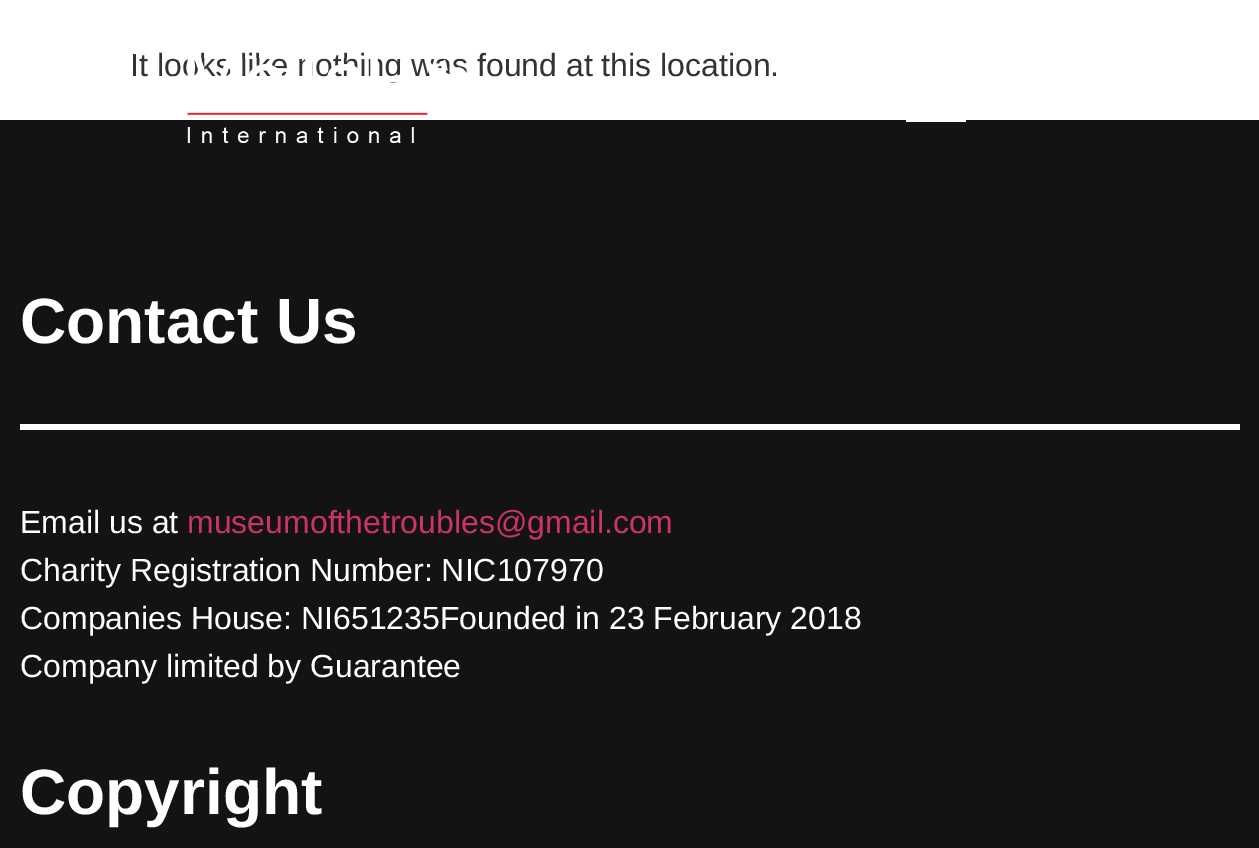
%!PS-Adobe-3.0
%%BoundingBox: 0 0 1259 848
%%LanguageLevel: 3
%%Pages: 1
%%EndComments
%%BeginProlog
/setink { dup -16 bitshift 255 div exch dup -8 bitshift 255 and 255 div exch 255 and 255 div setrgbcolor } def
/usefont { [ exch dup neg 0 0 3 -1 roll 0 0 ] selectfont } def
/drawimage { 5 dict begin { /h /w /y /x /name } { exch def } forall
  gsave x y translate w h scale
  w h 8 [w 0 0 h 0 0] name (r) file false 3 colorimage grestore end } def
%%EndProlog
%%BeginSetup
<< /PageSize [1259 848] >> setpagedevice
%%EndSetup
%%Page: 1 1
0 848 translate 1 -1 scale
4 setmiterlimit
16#FFFFFF setink
0 0 1259 848 rectfill
/LiberationSans-Regular 32 usefont
16#333333 setink
130 76 moveto (It looks like nothing was found at this location.) show
16#131313 setink
0 120 1259 728 rectfill
(img1.raw) 187 58 280 85 drawimage
16#FFFFFF setink
906 120 60 2 rectfill
/LiberationSans-Bold 64 usefont
20 343 moveto (Contact Us) show
20 424 1220 6 rectfill
/LiberationSans-Regular 32 usefont
20 533 moveto (Email us at) show
16#CC3366 setink
187 533 moveto (museumofthetroubles@gmail.com) show
16#FFFFFF setink
[
    [(Charity Registration Number: NIC107970) 20 581]
    [(Companies House: NI651235Founded in 23 February 2018) 20 629]
    [(Company limited by Guarantee) 20 677]
] { aload pop moveto show } forall
/LiberationSans-Bold 64 usefont
20 814 moveto (Copyright) show
showpage
%%EOF
